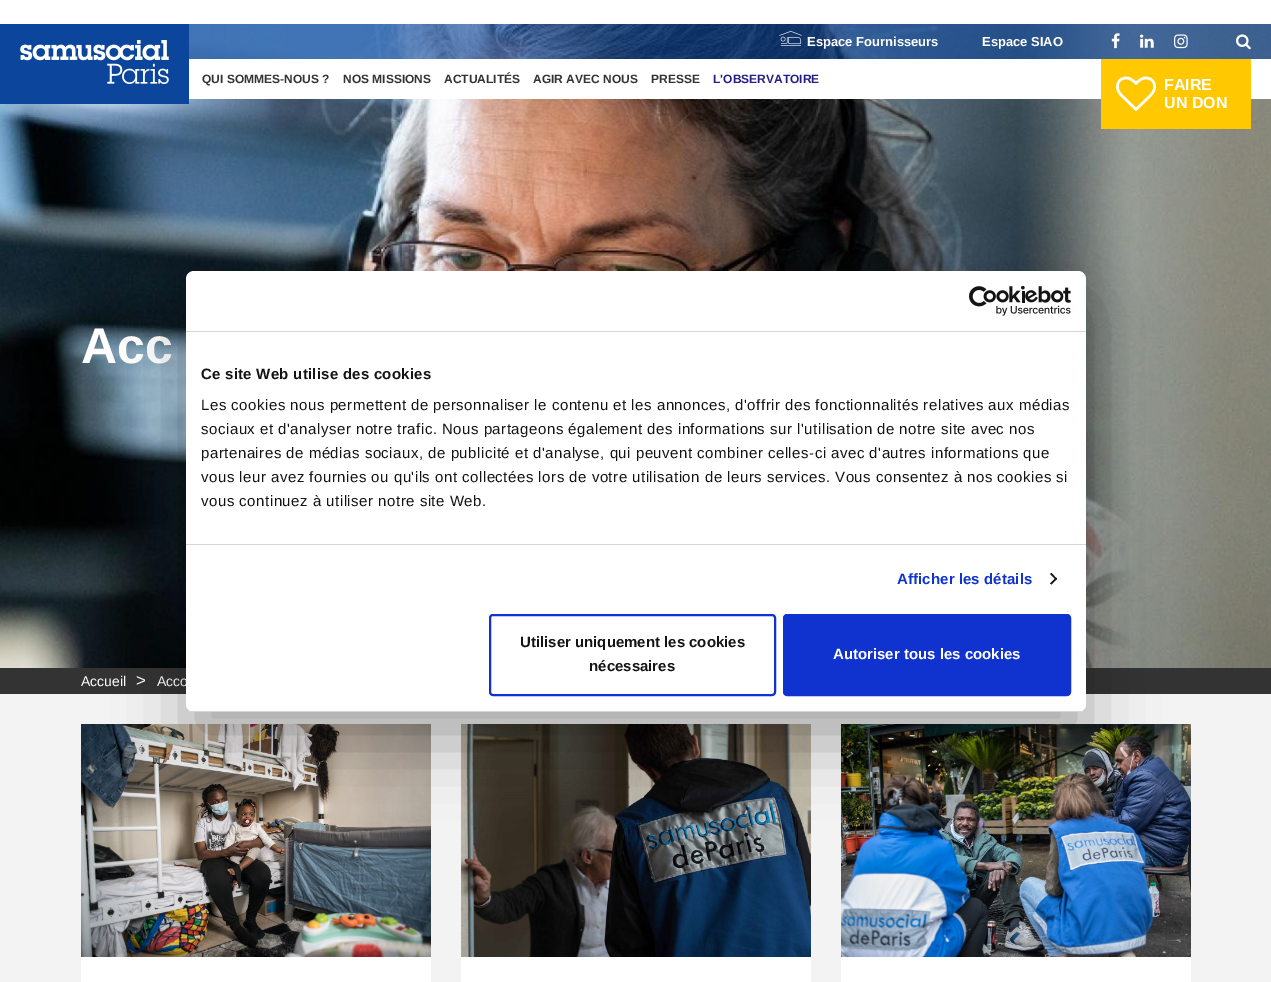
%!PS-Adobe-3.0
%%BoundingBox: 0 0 1271 982
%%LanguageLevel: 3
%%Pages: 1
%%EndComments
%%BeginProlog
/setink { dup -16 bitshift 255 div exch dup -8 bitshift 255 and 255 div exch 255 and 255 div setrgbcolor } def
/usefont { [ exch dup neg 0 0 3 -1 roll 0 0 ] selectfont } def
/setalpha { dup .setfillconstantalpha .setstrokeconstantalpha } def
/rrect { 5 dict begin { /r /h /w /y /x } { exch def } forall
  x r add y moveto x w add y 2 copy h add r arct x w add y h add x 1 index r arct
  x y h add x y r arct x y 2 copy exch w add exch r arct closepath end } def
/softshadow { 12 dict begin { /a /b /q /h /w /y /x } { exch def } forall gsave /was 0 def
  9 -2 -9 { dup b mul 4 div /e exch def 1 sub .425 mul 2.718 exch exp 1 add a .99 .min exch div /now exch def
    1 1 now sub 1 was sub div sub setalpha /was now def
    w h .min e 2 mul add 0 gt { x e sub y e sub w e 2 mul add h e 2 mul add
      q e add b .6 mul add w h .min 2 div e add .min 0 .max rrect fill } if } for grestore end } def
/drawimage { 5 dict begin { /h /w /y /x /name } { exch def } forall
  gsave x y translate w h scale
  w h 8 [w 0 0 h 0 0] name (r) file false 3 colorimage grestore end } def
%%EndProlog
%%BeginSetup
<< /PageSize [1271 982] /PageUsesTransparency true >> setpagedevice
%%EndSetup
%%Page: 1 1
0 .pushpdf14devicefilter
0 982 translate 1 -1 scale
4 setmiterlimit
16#FFFFFF setink
0 0 1271 982 rectfill
(img8.raw) 0 24 1271 644 drawimage
16#0C469C setink
0 24 189 80 rectfill
(img1.raw) 20 40 149 44 drawimage
0.6 setalpha
189 24 1082 35 rectfill
1 setalpha
(img2.raw) 779 31 23 15 drawimage
/LiberationSans-Bold 13 usefont
16#FFFFFF setink
807 46 moveto (Espace Fournisseurs) show
982 46 moveto (Espace SIAO) show
(img3.raw) 1111 33 9 16 drawimage
(img4.raw) 1140 34 14 14 drawimage
(img5.raw) 1174 34 14 15 drawimage
(img6.raw) 1236 34 15 16 drawimage
189 59 1082 40 rectfill
/LiberationSans-Bold 12 usefont
16#333333 setink
[
    [(QUI SOMMES-NOUS ?) 202 83]
    [(NOS MISSIONS) 343 83]
    [(ACTUALITÉS) 444 83]
    [(AGIR AVEC NOUS) 533 83]
    [(PRESSE) 651 83]
] { aload pop moveto show } forall
16#251E87 setink
713 83 moveto (L'OBSERVATOIRE) show
16#FFC800 setink
1101 59 150 70 rectfill
(img7.raw) 1116 76 40 35 drawimage
/LiberationSans-Bold 16 usefont
16#FFFFFF setink
1164 90 moveto (FAIRE) show
1164 108 moveto (UN DON) show
/LiberationSans-Bold 50 usefont
81 363 moveto (Acc) show
16#333333 setink
0 668 1271 26 rectfill
/LiberationSans-Regular 14 usefont
16#FFFFFF setink
81 686 moveto (Accueil) show
/LiberationSans-Regular 17 usefont
136 686 moveto (>) show
/LiberationSans-Regular 14 usefont
157 686 moveto (Acco) show
16#F3F3F3 setink
0 694 1271 288 rectfill
(img9.raw) 81 724 350 233 drawimage
16#FFFFFF setink
81 957 350 25 rectfill
(img10.raw) 461 724 350 233 drawimage
461 957 350 25 rectfill
(img11.raw) 841 724 350 233 drawimage
841 957 350 25 rectfill
16#000000 setink
186 303 900 441 8 34 0.3 softshadow
16#FFFFFF setink
186 271 900 441 8 rrect fill
16#D6D6D6 setink
186 331 900 1 rectfill
(img12.raw) 969 286 102 30 drawimage
186 544 900 1 rectfill
/LiberationSans-Bold 15 usefont
16#141414 setink
201 379 moveto 0.25 0 (Ce site Web utilise des cookies) ashow
/LiberationSans-Regular 15 usefont
201 410 moveto 0.5 0 (Les cookies nous permettent de personnaliser le contenu et les annonces, d'offrir des fonctionnalités relatives aux médias) ashow
201 434 moveto 0.5 0 (sociaux et d'analyser notre trafic. Nous partageons également des informations sur l'utilisation de notre site avec nos) ashow
201 458 moveto 0.5 0 (partenaires de médias sociaux, de publicité et d'analyse, qui peuvent combiner celles-ci avec d'autres informations que) ashow
201 482 moveto 0.5 0 (vous leur avez fournies ou qu'ils ont collectées lors de votre utilisation de leurs services. Vous consentez à nos cookies si) ashow
201 506 moveto 0.5 0 (vous continuez à utiliser notre site Web.) ashow
/LiberationSans-Bold 15 usefont
16#1032CF setink
897 584 moveto 0.1 0 (Afficher les détails) ashow
16#141414 setink
1051.5 573 moveto 1057 579 lineto 1056 580 lineto 1050 574 lineto closepath fill
1056 577.5 moveto 1057 579 lineto 1051.5 584.5 lineto 1050 583.5 lineto closepath fill
gsave
186 271 900 441 8 rrect clip newpath
16#D6D6D6 setink
186 711 900 1 rectfill
grestore
16#1032CF setink
2 setlinewidth
490 615 285 80 3 rrect stroke
16#141414 setink
520 647 moveto (Utiliser uniquement les cookies) show
589 671 moveto (nécessaires) show
16#1032CF setink
784 615 286 80 3 rrect gsave fill grestore
stroke
16#FFFFFF setink
833 659 moveto (Autoriser tous les cookies) show
.poppdf14devicefilter showpage
%%EOF
